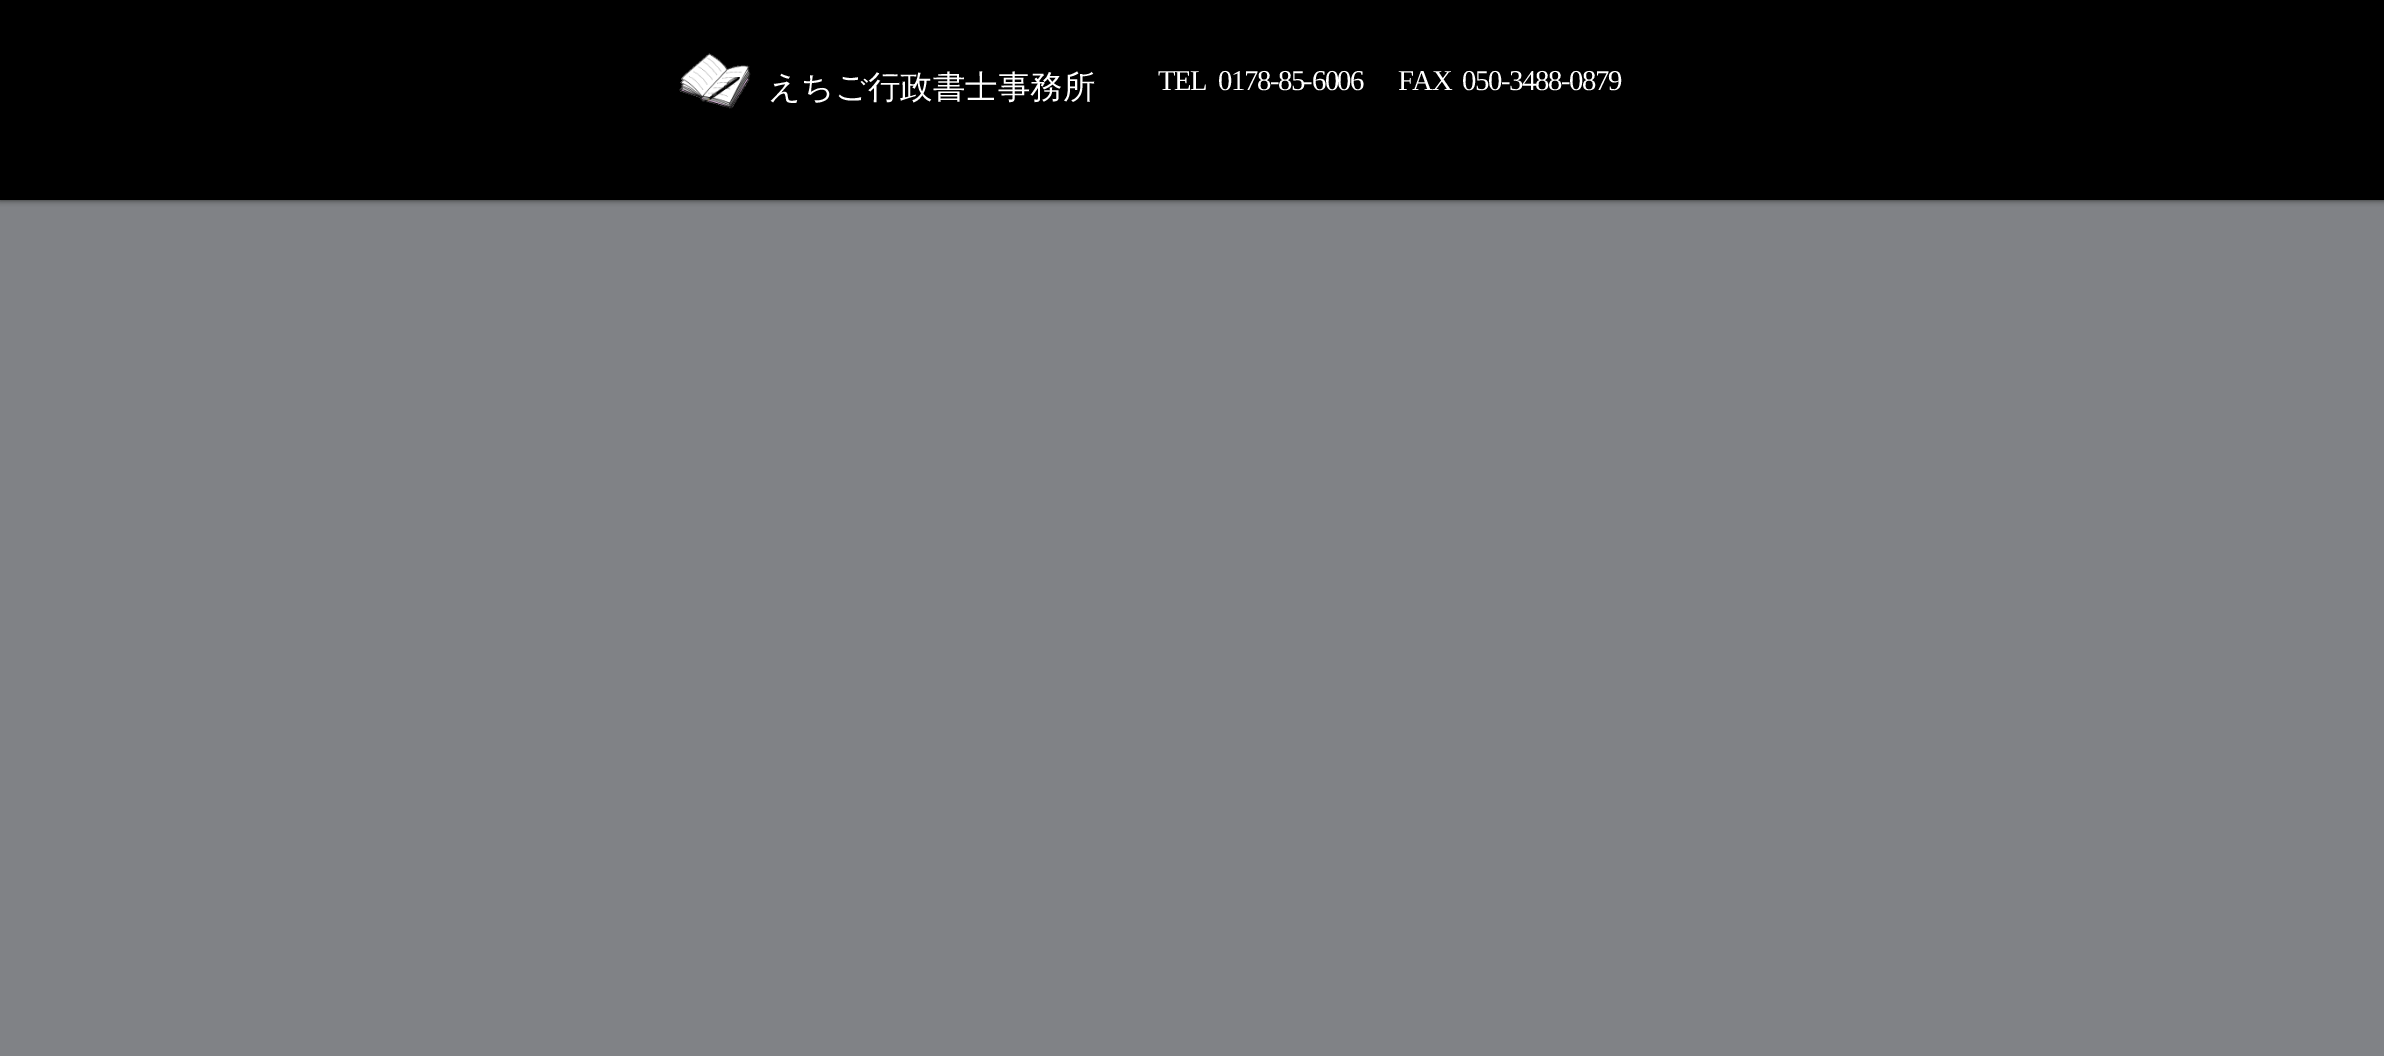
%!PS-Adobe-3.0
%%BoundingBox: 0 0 2384 1056
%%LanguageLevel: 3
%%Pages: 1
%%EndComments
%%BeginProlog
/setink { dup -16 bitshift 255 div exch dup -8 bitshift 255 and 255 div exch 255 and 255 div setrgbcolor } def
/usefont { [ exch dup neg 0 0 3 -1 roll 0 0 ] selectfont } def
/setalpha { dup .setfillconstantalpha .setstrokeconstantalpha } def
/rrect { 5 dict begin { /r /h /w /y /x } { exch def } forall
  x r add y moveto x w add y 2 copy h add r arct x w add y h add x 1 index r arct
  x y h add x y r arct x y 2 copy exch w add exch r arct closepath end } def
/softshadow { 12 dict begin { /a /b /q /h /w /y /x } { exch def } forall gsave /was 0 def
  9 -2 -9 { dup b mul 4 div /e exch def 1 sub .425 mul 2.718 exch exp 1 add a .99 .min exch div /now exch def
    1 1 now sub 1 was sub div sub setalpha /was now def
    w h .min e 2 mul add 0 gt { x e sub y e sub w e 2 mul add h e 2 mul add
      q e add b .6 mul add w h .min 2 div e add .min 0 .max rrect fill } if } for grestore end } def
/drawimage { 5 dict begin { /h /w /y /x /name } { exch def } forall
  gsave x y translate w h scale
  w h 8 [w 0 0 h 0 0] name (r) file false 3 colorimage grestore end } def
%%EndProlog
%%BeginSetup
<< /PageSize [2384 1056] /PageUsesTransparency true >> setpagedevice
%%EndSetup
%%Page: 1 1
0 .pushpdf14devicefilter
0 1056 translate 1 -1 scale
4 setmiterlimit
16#808286 setink
0 0 2384 1056 rectfill
16#000000 setink
0 0 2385 200 0 3 0.7 softshadow
0 0 2384 200 rectfill
(img1.raw) 679 53 72 56 drawimage
/WenQuanYiZenHei-Medium 32.5 usefont
16#FFFFFF setink
768 98 moveto (えちご行政書士事務所) show
/LiberationSerif-Regular 28.75 usefont
1158 90 moveto -1.45 0 (TEL  0178-85-6006      FAX  050-3488-0879) ashow
.poppdf14devicefilter showpage
%%EOF
